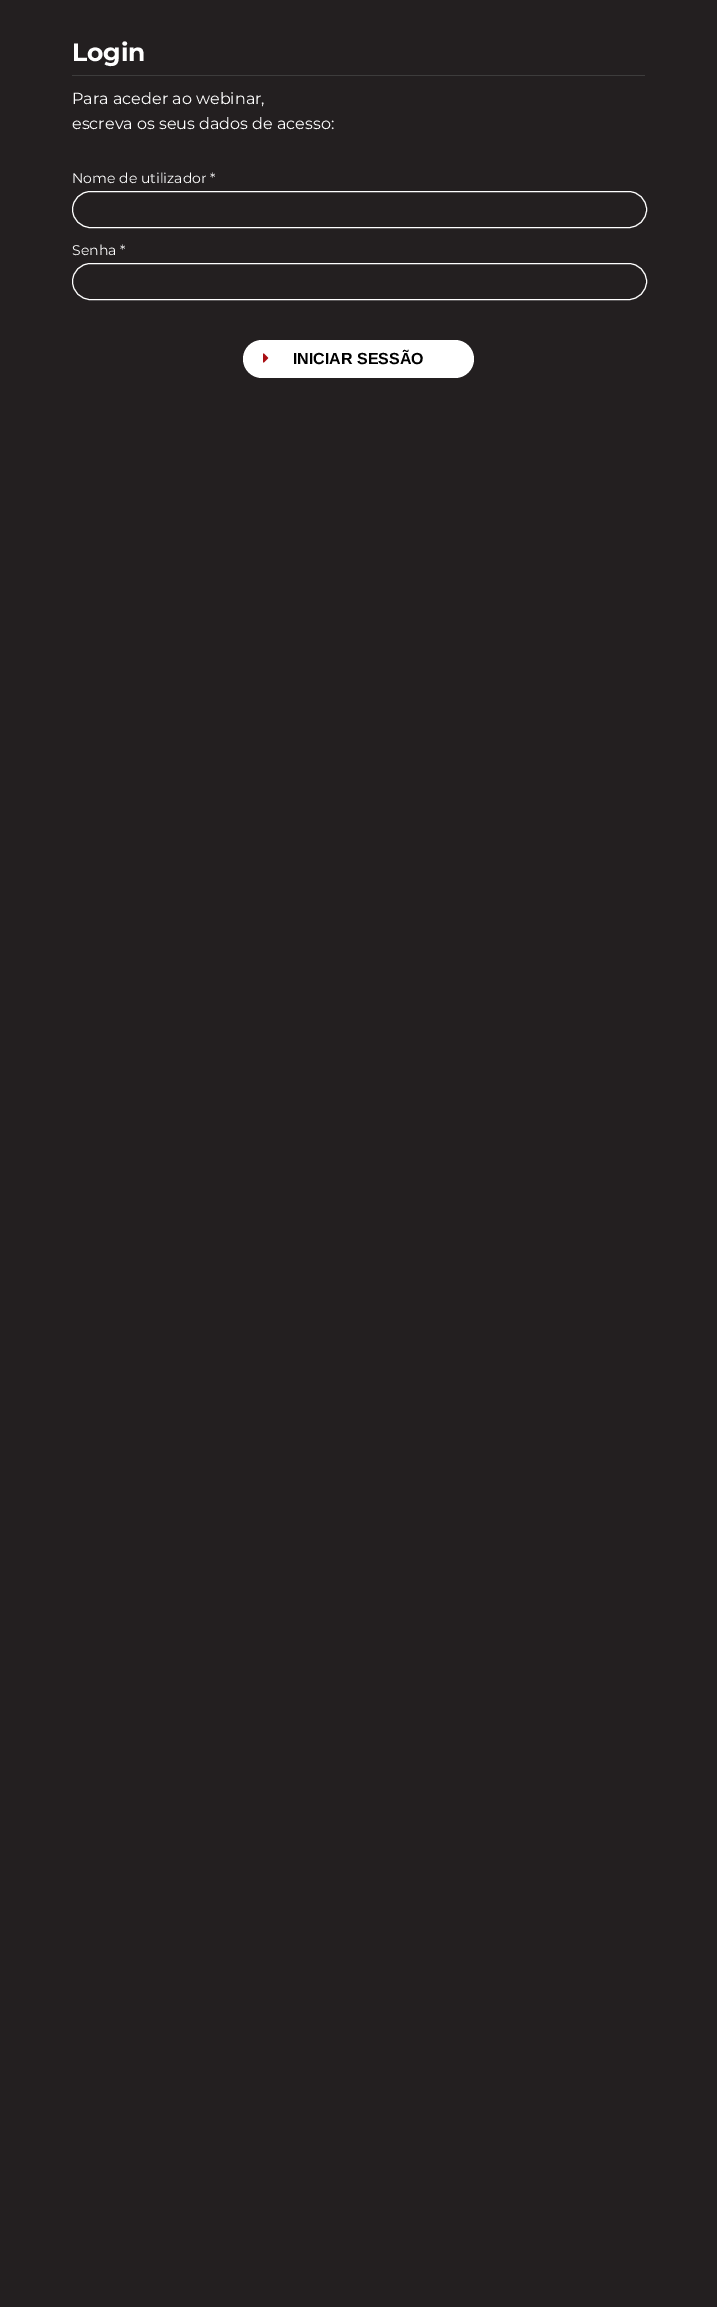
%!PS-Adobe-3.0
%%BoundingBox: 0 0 717 2307
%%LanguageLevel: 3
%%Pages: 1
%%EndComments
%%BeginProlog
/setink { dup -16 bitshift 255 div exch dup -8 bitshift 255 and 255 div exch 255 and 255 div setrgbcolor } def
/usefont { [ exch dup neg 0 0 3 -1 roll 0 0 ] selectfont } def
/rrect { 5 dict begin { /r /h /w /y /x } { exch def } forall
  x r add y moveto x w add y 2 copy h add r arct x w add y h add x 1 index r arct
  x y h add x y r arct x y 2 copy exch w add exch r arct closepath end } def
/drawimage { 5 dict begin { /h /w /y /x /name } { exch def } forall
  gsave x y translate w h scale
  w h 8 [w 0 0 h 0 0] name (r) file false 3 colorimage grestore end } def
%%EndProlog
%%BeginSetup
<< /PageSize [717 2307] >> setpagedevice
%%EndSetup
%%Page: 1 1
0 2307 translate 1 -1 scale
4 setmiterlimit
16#231F20 setink
0 0 717 2307 rectfill
16#3D3C3C setink
72 75 573 1 rectfill
/Montserrat-Bold 25 usefont
16#FFFFFF setink
72 61 moveto (Login) show
/Montserrat-Regular 16 usefont
72 104 moveto (Para aceder ao webinar,) show
72 129 moveto (escreva os seus dados de acesso:) show
/Montserrat-Regular 14 usefont
72 183 moveto (Nome de utilizador *) show
72.5 191.5 574 36 18 rrect stroke
72 255 moveto (Senha *) show
72.5 263.5 574 36 18 rrect stroke
243 340 231 38 19 rrect fill
(img1.raw) 263 353 6 10 drawimage
/LiberationSans-Bold 16 usefont
16#000000 setink
293 364 moveto (INICIAR SESSÃO) show
showpage
%%EOF
